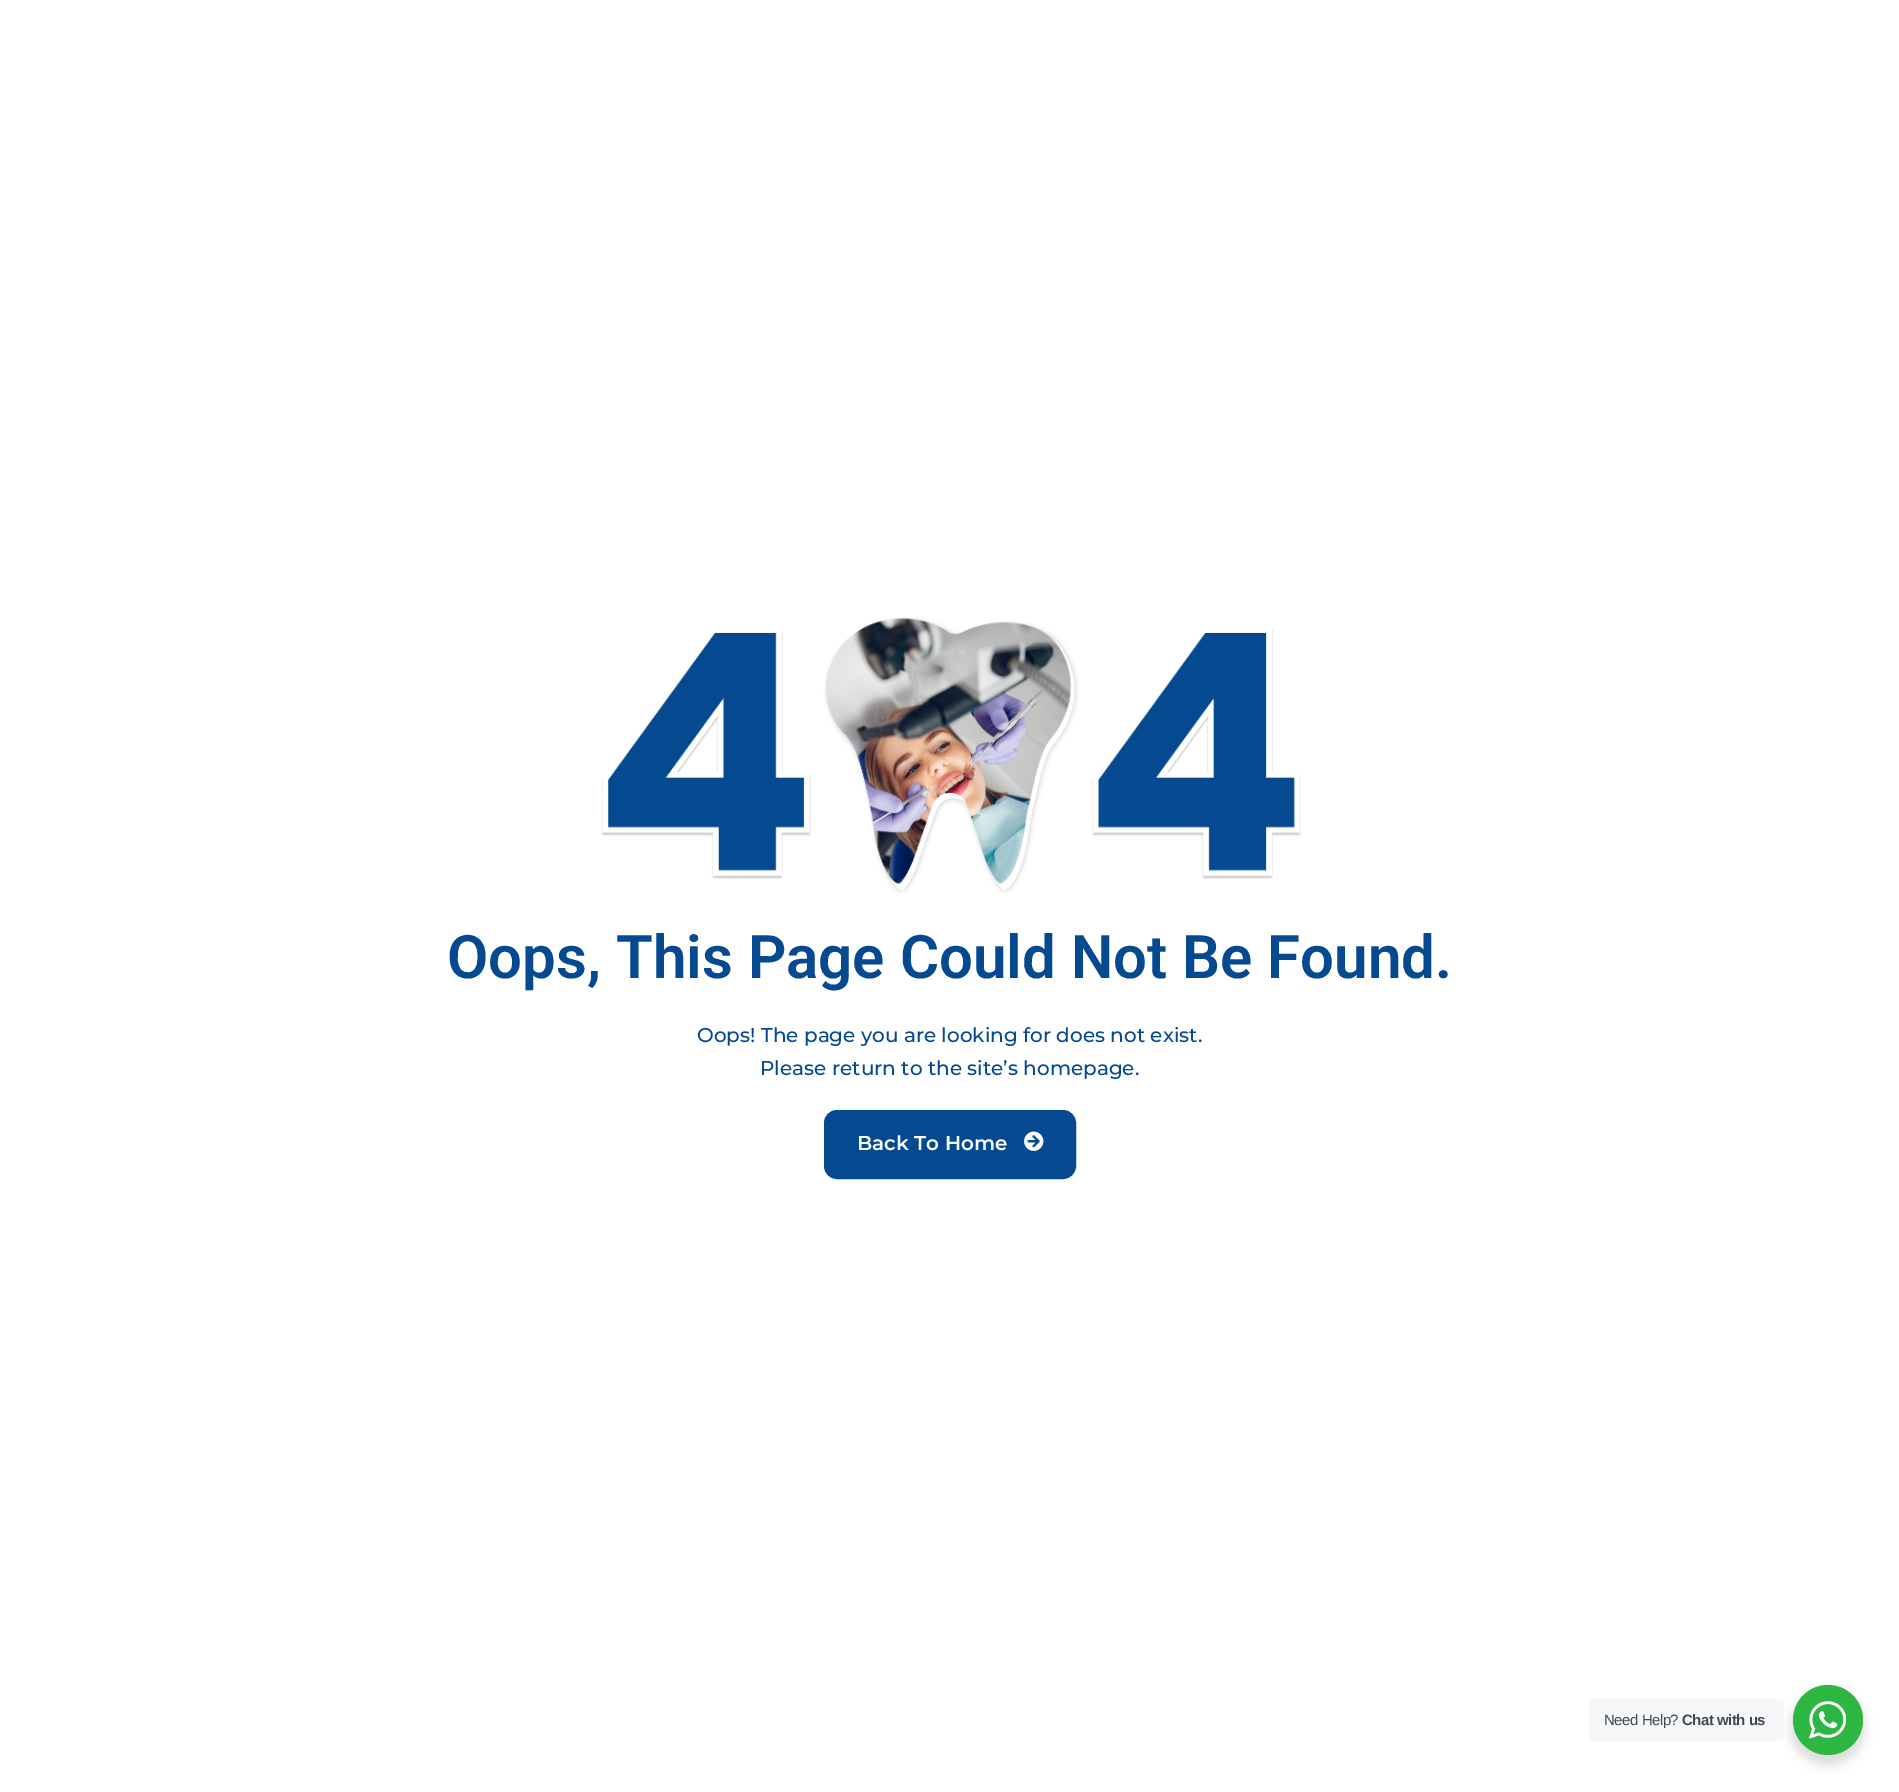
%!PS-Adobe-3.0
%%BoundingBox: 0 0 1899 1792
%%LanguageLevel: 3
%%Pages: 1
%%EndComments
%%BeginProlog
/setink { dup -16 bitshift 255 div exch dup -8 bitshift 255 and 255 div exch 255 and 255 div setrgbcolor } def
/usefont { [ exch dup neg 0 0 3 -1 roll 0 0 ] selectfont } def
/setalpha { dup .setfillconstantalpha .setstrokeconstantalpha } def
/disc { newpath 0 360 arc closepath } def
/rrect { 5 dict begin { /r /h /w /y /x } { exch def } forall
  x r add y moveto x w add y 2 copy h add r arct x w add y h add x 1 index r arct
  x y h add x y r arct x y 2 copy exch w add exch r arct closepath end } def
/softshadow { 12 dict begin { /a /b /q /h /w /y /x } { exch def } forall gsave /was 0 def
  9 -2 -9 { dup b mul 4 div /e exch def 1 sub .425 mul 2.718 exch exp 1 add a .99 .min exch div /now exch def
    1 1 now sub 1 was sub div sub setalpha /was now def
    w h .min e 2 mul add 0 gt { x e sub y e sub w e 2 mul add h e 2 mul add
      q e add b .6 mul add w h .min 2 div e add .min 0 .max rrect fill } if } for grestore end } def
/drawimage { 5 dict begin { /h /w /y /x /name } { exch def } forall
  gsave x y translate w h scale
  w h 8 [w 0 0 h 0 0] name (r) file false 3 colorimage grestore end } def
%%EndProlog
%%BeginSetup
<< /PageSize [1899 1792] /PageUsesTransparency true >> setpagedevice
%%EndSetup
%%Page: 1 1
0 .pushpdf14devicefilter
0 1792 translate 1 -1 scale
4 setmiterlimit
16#FFFFFF setink
0 0 1899 1792 rectfill
(img1.raw) 601 617 700 276 drawimage
/Roboto-SemiBold 60 usefont
16#054A91 setink
447 978 moveto (Oops, This Page Could Not Be Found.) show
/Montserrat-Medium 20 usefont
697 1042 moveto (Oops! The page you are looking for does not exist.) show
760 1075 moveto (Please return to the site’s homepage.) show
825.5 1111.5 249 66 11.5 rrect gsave fill grestore
3 setlinewidth
stroke
/Montserrat-SemiBold 20 usefont
16#FFFFFF setink
857 1150 moveto (Back To Home) show
(img2.raw) 1024 1131 20 20 drawimage
16#000000 setink
1790 1690 75 75 37.5 5 0.14 softshadow
16#F5F7F9 setink
1589 1699 195 42 5 rrect fill
/LiberationSans-Regular 15 usefont
16#43474E setink
1604 1725 moveto -0.5 0 (Need Help?) ashow
/LiberationSans-Bold 15 usefont
1682 1725 moveto -0.5 0 (Chat with us) ashow
16#2DB742 setink
1828 1720 35 disc fill
(img3.raw) 1809 1701 37 38 drawimage
.poppdf14devicefilter showpage
%%EOF
